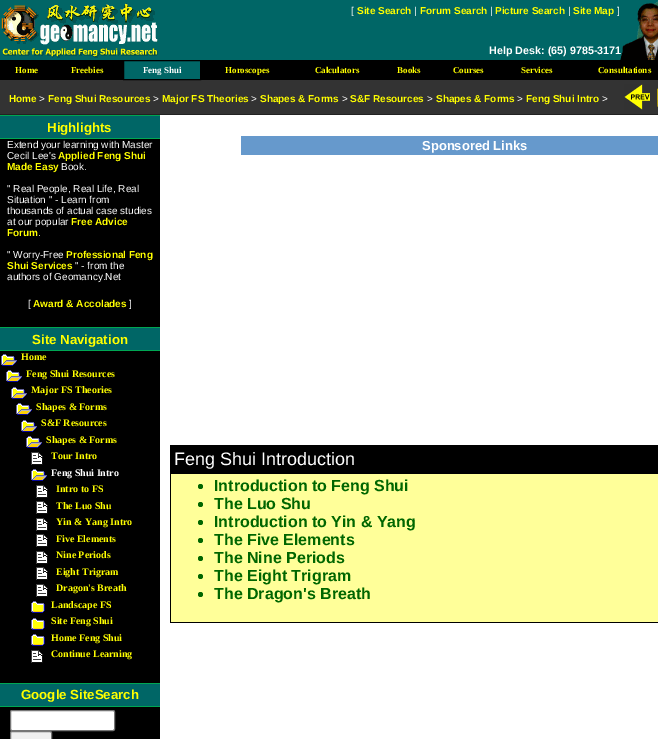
%!PS-Adobe-3.0
%%BoundingBox: 0 0 658 739
%%LanguageLevel: 3
%%Pages: 1
%%EndComments
%%BeginProlog
/setink { dup -16 bitshift 255 div exch dup -8 bitshift 255 and 255 div exch 255 and 255 div setrgbcolor } def
/usefont { [ exch dup neg 0 0 3 -1 roll 0 0 ] selectfont } def
/disc { newpath 0 360 arc closepath } def
/rrect { 5 dict begin { /r /h /w /y /x } { exch def } forall
  x r add y moveto x w add y 2 copy h add r arct x w add y h add x 1 index r arct
  x y h add x y r arct x y 2 copy exch w add exch r arct closepath end } def
/drawimage { 5 dict begin { /h /w /y /x /name } { exch def } forall
  gsave x y translate w h scale
  w h 8 [w 0 0 h 0 0] name (r) file false 3 colorimage grestore end } def
%%EndProlog
%%BeginSetup
<< /PageSize [658 739] >> setpagedevice
%%EndSetup
%%Page: 1 1
0 739 translate 1 -1 scale
4 setmiterlimit
16#FFFFFF setink
0 0 658 739 rectfill
16#000000 setink
0 60 160 679 rectfill
16#006666 setink
0 58 160 2 rectfill
(img1.raw) 0 0 160 58 drawimage
160 0 460 60 rectfill
/LiberationSans-Regular 10 usefont
16#FFFFFF setink
351 14 moveto ([) show
/LiberationSans-Bold 10 usefont
16#FFFF00 setink
357 14 moveto (Site Search) show
/LiberationSans-Regular 10 usefont
16#FFFFFF setink
414 14 moveto (|) show
/LiberationSans-Bold 10 usefont
16#FFFF00 setink
420 14 moveto (Forum Search) show
/LiberationSans-Regular 10 usefont
16#FFFFFF setink
490 14 moveto (|) show
/LiberationSans-Bold 10 usefont
16#FFFF00 setink
495 14 moveto (Picture Search) show
/LiberationSans-Regular 10 usefont
16#FFFFFF setink
568 14 moveto (|) show
/LiberationSans-Bold 10 usefont
16#FFFF00 setink
573 14 moveto (Site Map) show
/LiberationSans-Regular 10 usefont
16#FFFFFF setink
617 14 moveto (]) show
16#006666 setink
620 0 38 1 rectfill
(img2.raw) 620 1 38 59 drawimage
/LiberationSans-Bold 10.75 usefont
16#FFFFFF setink
489 54 moveto (Help Desk: \(65\) 9785-3171) show
[
    [201 60 457 20 16#000000]
    [0 80 658 34 16#333333]
    [0 114 658 1 16#222222]
] { aload pop setink rectfill } forall
/LiberationSans-Bold 10 usefont
16#FFFF00 setink
9 102 moveto (Home) show
/LiberationSans-Regular 10 usefont
16#FFFFFF setink
39 102 moveto (>) show
/LiberationSans-Bold 10 usefont
16#FFFF00 setink
48 102 moveto (Feng Shui Resources) show
/LiberationSans-Regular 10 usefont
16#FFFFFF setink
153 102 moveto (>) show
/LiberationSans-Bold 10 usefont
16#FFFF00 setink
162 102 moveto (Major FS Theories) show
/LiberationSans-Regular 10 usefont
16#FFFFFF setink
251 102 moveto (>) show
/LiberationSans-Bold 10 usefont
16#FFFF00 setink
260 102 moveto (Shapes & Forms) show
/LiberationSans-Regular 10 usefont
16#FFFFFF setink
342 102 moveto (>) show
/LiberationSans-Bold 10 usefont
16#FFFF00 setink
350 102 moveto (S&F Resources) show
/LiberationSans-Regular 10 usefont
16#FFFFFF setink
427 102 moveto (>) show
/LiberationSans-Bold 10 usefont
16#FFFF00 setink
436 102 moveto (Shapes & Forms) show
/LiberationSans-Regular 10 usefont
16#FFFFFF setink
517 102 moveto (>) show
/LiberationSans-Bold 10 usefont
16#FFFF00 setink
526 102 moveto (Feng Shui Intro) show
/LiberationSans-Regular 10 usefont
16#FFFFFF setink
602 102 moveto (>) show
(img3.raw) 624 84 26 26 drawimage
(img4.raw) 657 88 1 19 drawimage
[
    [0 116 160 22 16#006666]
    [0 115 160 1 16#00A653]
    [0 138 160 1 16#00A653]
] { aload pop setink rectfill } forall
/LiberationSans-Bold 13.25 usefont
16#FFFF00 setink
47 132 moveto (Highlights) show
/LiberationSans-Regular 10 usefont
16#FFFFFF setink
7 148 moveto (Extend your learning with Master) show
7 159 moveto (Cecil Lee's) show
/LiberationSans-Bold 10 usefont
16#FFFF00 setink
58 159 moveto (Applied Feng Shui) show
7 170 moveto (Made Easy) show
/LiberationSans-Regular 10 usefont
16#FFFFFF setink
[
    [(Book.) 61 170]
    [(" Real People, Real Life, Real) 7 192]
    [(Situation " - Learn from) 7 203]
    [(thousands of actual case studies) 7 214]
    [(at our popular) 7 225]
] { aload pop moveto show } forall
/LiberationSans-Bold 10 usefont
16#FFFF00 setink
71 225 moveto (Free Advice) show
7 236 moveto (Forum) show
/LiberationSans-Regular 10 usefont
16#FFFFFF setink
38 236 moveto (.) show
7 258 moveto (" Worry-Free) show
/LiberationSans-Bold 10 usefont
16#FFFF00 setink
66 258 moveto (Professional Feng) show
7 269 moveto (Shui Services) show
/LiberationSans-Regular 10 usefont
16#FFFFFF setink
[
    [(" - from the) 75 269]
    [(authors of Geomancy.Net) 7 280]
    [([) 28 307]
] { aload pop moveto show } forall
/LiberationSans-Bold 10 usefont
16#FFFF00 setink
33 307 moveto (Award & Accolades) show
/LiberationSans-Regular 10 usefont
16#FFFFFF setink
129 307 moveto (]) show
[
    [0 328 160 22 16#006666]
    [0 327 160 1 16#00A653]
    [0 350 160 1 16#00A653]
] { aload pop setink rectfill } forall
/LiberationSans-Bold 13.25 usefont
16#FFFF00 setink
32 344 moveto (Site Navigation) show
(img5.raw) 1 354 16 12 drawimage
/LiberationSerif-Bold 10 usefont
21 360 moveto (Home) show
(img5.raw) 6 370 16 12 drawimage
26 377 moveto (Feng Shui Resources) show
(img5.raw) 11 387 16 12 drawimage
31 393 moveto (Major FS Theories) show
(img5.raw) 16 403 16 12 drawimage
36 410 moveto (Shapes & Forms) show
(img5.raw) 21 420 16 12 drawimage
41 426 moveto (S&F Resources) show
(img5.raw) 26 436 16 12 drawimage
46 443 moveto (Shapes & Forms) show
(img6.raw) 31 452 12 13 drawimage
51 459 moveto (Tour Intro) show
(img5.raw) 31 469 16 12 drawimage
16#FFFFFF setink
51 476 moveto (Feng Shui Intro) show
(img6.raw) 36 485 12 13 drawimage
16#FFFF00 setink
56 492 moveto (Intro to FS) show
(img6.raw) 36 501 12 13 drawimage
56 509 moveto (The Luo Shu) show
(img6.raw) 36 518 12 13 drawimage
56 525 moveto (Yin & Yang Intro) show
(img6.raw) 36 534 12 13 drawimage
56 542 moveto (Five Elements) show
(img6.raw) 36 551 12 13 drawimage
56 558 moveto (Nine Periods) show
(img6.raw) 36 567 12 13 drawimage
56 575 moveto (Eight Trigram) show
(img6.raw) 36 584 12 13 drawimage
56 591 moveto (Dragon's Breath) show
(img7.raw) 31 601 14 12 drawimage
51 608 moveto (Landscape FS) show
(img7.raw) 31 618 14 12 drawimage
51 624 moveto (Site Feng Shui) show
(img7.raw) 31 634 14 12 drawimage
51 641 moveto (Home Feng Shui) show
(img6.raw) 31 650 12 13 drawimage
51 657 moveto (Continue Learning) show
[
    [0 684 160 22 16#006666]
    [0 683 160 1 16#00A653]
    [0 706 160 1 16#00A653]
] { aload pop setink rectfill } forall
/LiberationSans-Bold 13.25 usefont
16#FFFF00 setink
21 699 moveto (Google SiteSearch) show
16#FFFFFF setink
10.5 710.5 104 20 1.5 rrect gsave fill grestore
16#767676 setink
stroke
16#EFEFEF setink
10.5 731.5 41 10 1.5 rrect gsave fill grestore
16#767676 setink
stroke
16#6699CC setink
241 136 417 19 rectfill
/LiberationSans-Bold 13 usefont
16#FFFFFF setink
422 150 moveto (Sponsored Links) show
16#000000 setink
170 445 488 178 rectfill
/LiberationSans-Regular 18 usefont
16#FFFFFF setink
174 465 moveto (Feng Shui Introduction) show
16#FFFF99 setink
171 474 487 148 rectfill
16#006600 setink
200.5 486.5 2.5 disc fill
/LiberationSans-Bold 16 usefont
214 491 moveto (Introduction to Feng Shui) show
200.5 504.5 2.5 disc fill
214 509 moveto (The Luo Shu) show
200.5 522.5 2.5 disc fill
214 527 moveto (Introduction to Yin & Yang) show
200.5 540.5 2.5 disc fill
214 545 moveto (The Five Elements) show
200.5 558.5 2.5 disc fill
214 563 moveto (The Nine Periods) show
200.5 576.5 2.5 disc fill
214 581 moveto (The Eight Trigram) show
200.5 594.5 2.5 disc fill
214 599 moveto (The Dragon's Breath) show
/LiberationSerif-Bold 9 usefont
16#FFFF00 setink
15 73 moveto (Home) show
71 73 moveto (Freebies) show
16#006666 setink
123.5 60.5 moveto 200.5 60.5 lineto 200.5 79.5 lineto 123.5 79.5 lineto closepath gsave fill grestore
16#000000 setink
stroke
16#FFFFFF setink
143 73 moveto (Feng Shui) show
16#FFFF00 setink
[
    [(Horoscopes) 225 73]
    [(Calculators) 315 73]
    [(Books) 397 73]
    [(Courses) 453 73]
    [(Services) 521 73]
    [(Consultations) 598 73]
] { aload pop moveto show } forall
showpage
%%EOF
